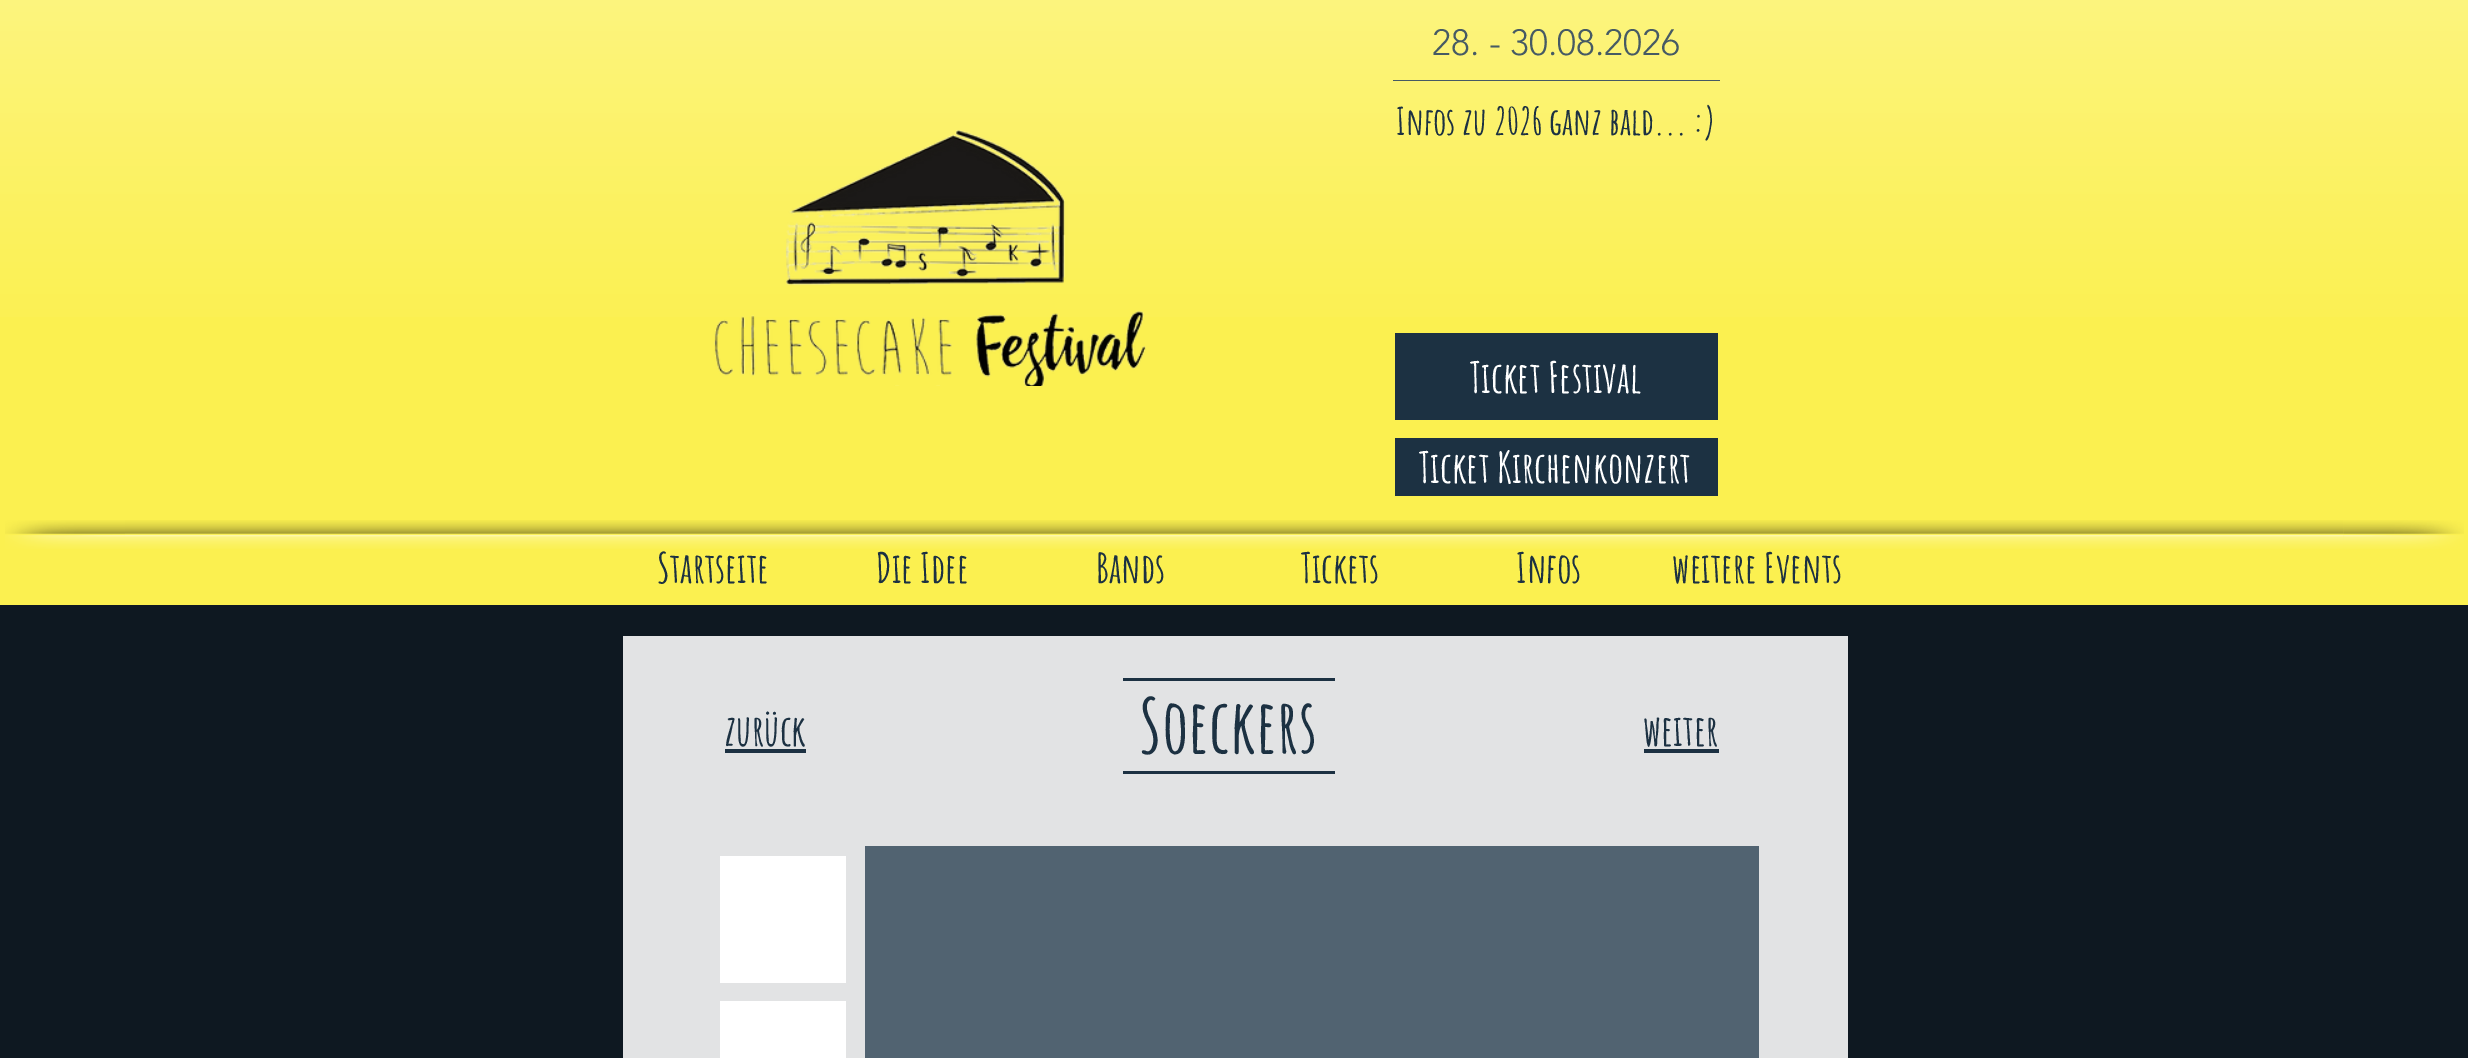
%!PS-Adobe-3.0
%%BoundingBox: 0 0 2468 1058
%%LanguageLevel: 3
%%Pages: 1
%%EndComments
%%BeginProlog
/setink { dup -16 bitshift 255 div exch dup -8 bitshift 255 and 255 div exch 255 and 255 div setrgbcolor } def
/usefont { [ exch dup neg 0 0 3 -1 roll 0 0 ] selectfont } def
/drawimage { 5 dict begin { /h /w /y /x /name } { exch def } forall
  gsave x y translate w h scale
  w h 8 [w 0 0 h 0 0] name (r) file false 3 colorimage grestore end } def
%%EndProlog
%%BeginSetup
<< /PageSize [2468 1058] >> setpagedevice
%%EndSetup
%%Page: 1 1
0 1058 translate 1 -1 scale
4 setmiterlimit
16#0E1821 setink
0 0 2468 1058 rectfill
16#FBF050 setink
0 0 2468 605 rectfill
(img1.raw) 0 0 2468 317 drawimage
/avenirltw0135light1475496-Light 36.25 usefont
16#465A64 setink
1432 55 moveto (28. - 30.08.2026) show
1393 80 327 1 rectfill
/AmaticSC-Bold 37.5 usefont
16#1C3142 setink
1396 135 moveto (Infos zu 2026 ganz bald... :\)) show
(img2.raw) 713 130 434 256 drawimage
1395 333 323 87 rectfill
/AmaticSC-Bold 42.5 usefont
16#FFFFFF setink
1470 393 moveto (Ticket Festival) show
16#1C3142 setink
1395 438 323 58 rectfill
16#FFFFFF setink
1419 483 moveto (Ticket Kirchenkonzert) show
(img3.raw) 5 520 120 29 drawimage
(img4.raw) 125 520 2219 29 drawimage
(img5.raw) 2343 520 121 29 drawimage
/AmaticSC-Bold 41.25 usefont
16#1C3142 setink
[
    [(Startseite) 657 583]
    [(Die Idee) 876 583]
    [(Bands) 1096 583]
    [(Tickets) 1301 583]
    [(Infos) 1516 583]
    [(weitere Events) 1672 583]
] { aload pop moveto show } forall
16#E2E3E4 setink
623 636 1225 422 rectfill
16#1C3142 setink
1123 678 212 3 rectfill
/AmaticSC-Bold 42.5 usefont
724 746 moveto (zurück) show
725 749 81 4 rectfill
/AmaticSC-Bold 74 usefont
1139 753 moveto (Soeckers) show
/AmaticSC-Bold 42.5 usefont
1643 746 moveto (weiter) show
[
    [1644 749 75 4 16#1C3142]
    [1123 771 212 3 16#1C3142]
    [720 856 126 127 16#FFFFFF]
    [720 1001 126 57 16#FFFFFF]
    [865 846 894 212 16#516371]
] { aload pop setink rectfill } forall
showpage
%%EOF
